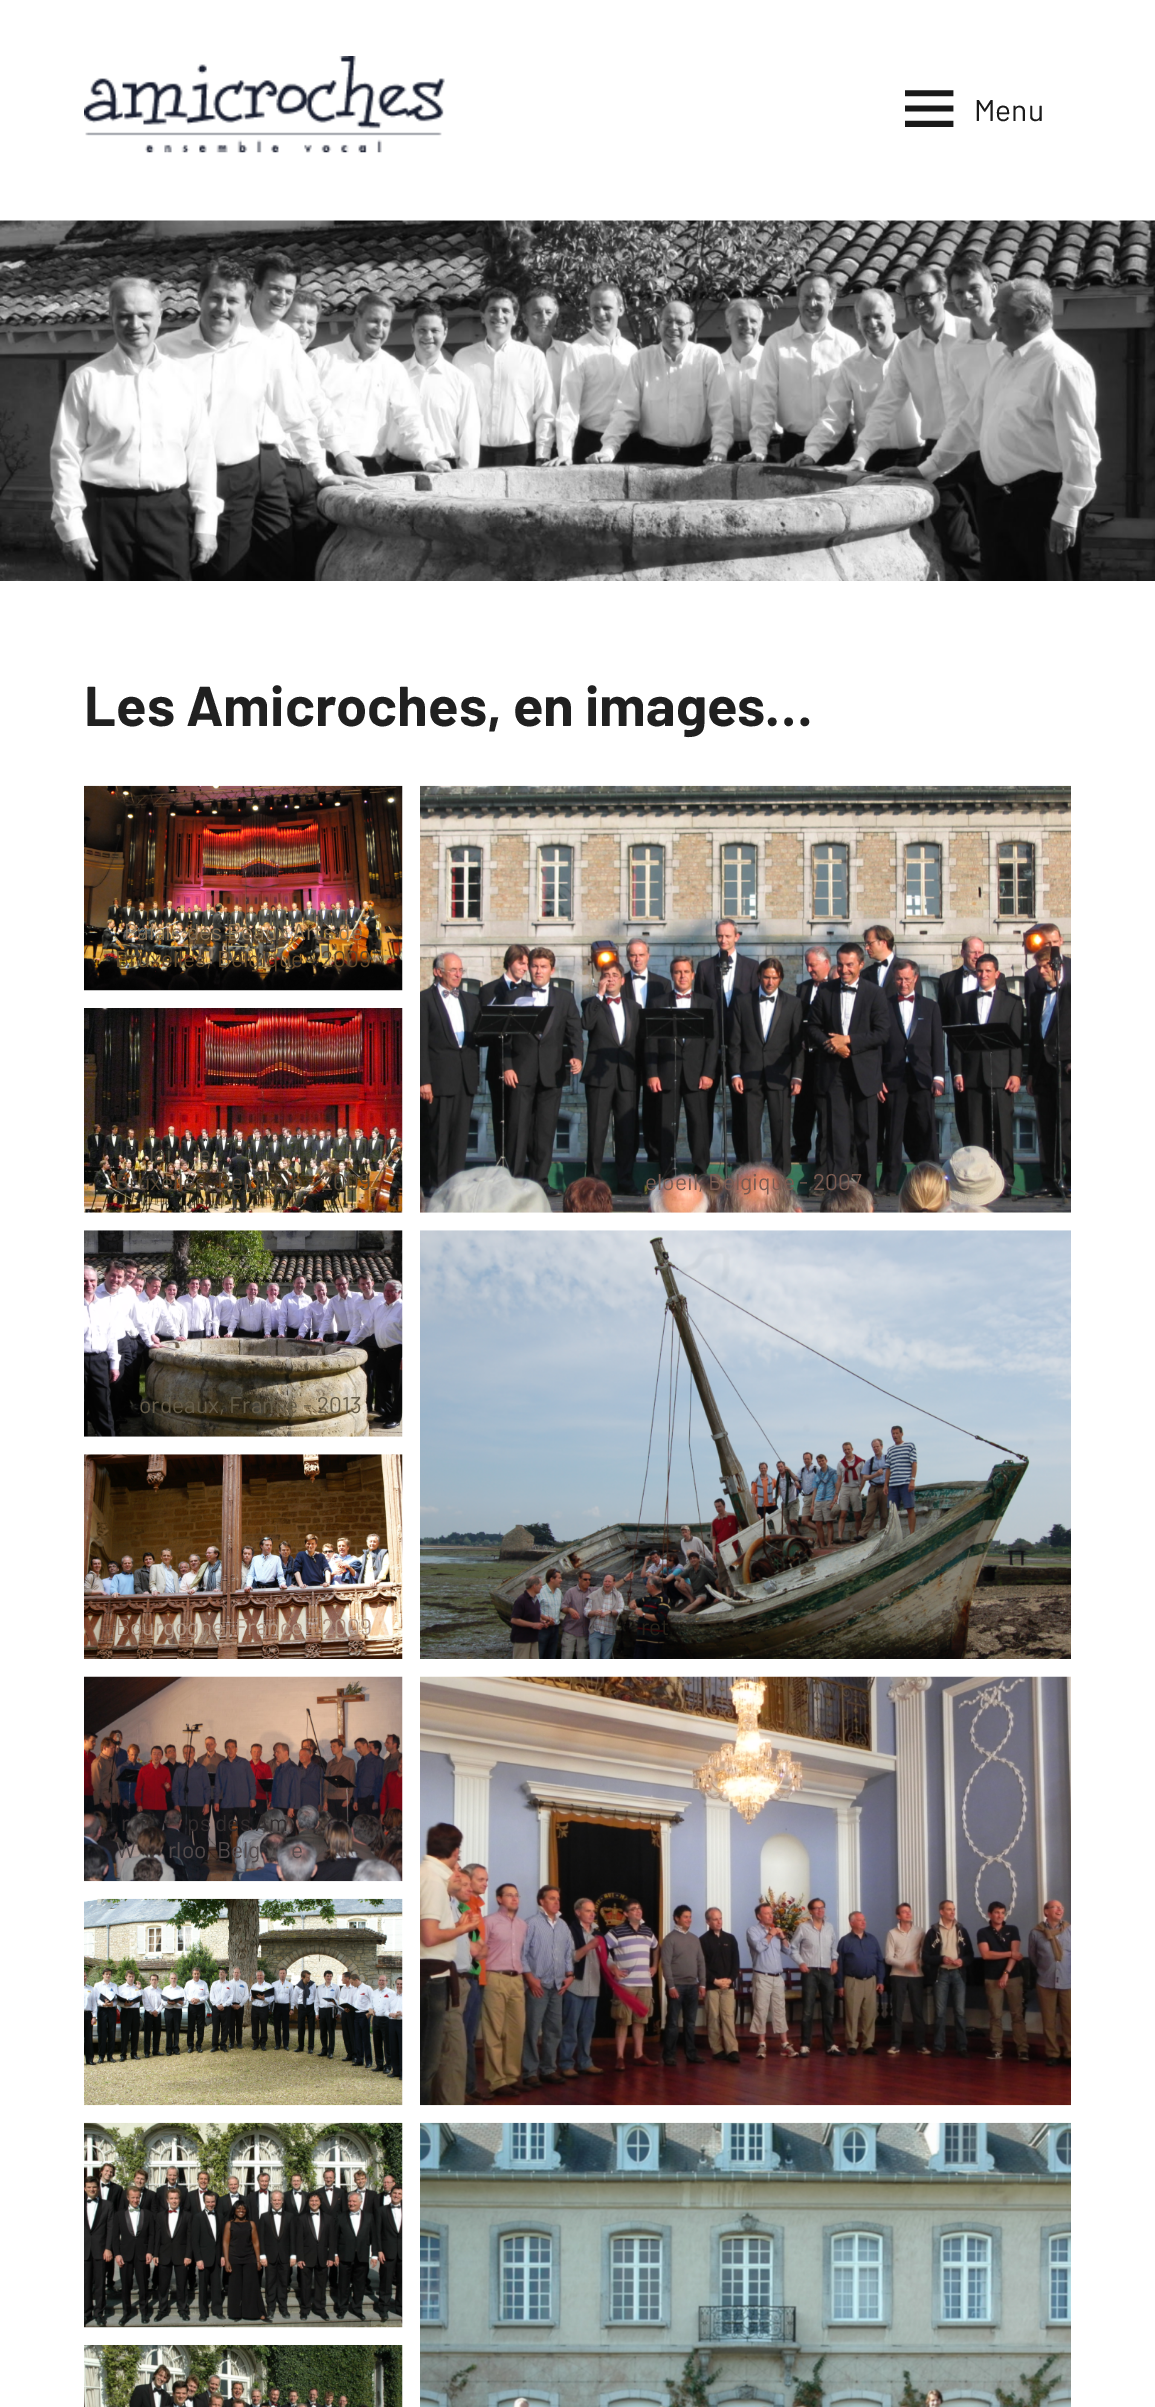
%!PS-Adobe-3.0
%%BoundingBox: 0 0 1155 2407
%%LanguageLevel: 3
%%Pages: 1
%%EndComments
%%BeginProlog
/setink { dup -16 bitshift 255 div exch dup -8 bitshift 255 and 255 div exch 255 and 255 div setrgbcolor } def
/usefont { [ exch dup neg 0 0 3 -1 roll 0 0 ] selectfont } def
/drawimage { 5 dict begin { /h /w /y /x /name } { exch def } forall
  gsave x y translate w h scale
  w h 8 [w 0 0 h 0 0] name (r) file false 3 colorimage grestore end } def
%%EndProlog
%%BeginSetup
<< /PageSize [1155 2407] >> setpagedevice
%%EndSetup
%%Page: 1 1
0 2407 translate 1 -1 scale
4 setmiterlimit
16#FFFFFF setink
0 0 1155 2407 rectfill
(img1.raw) 84 56 361 97 drawimage
(img2.raw) 905 90 49 37 drawimage
/Barlow-Regular 30 usefont
16#1A1A1A setink
974 121 moveto (Menu) show
(img3.raw) 0 220 1155 361 drawimage
/Barlow-Bold 56 usefont
16#202020 setink
84 726 moveto (Les Amicroches, en images…) show
(img4.raw) 84 785 319 206 drawimage
/NotoSans-Light 22.75 usefont
16#8F7B63 setink
124 940 moveto (P) show
/Barlow-Regular 22.75 usefont
16#877053 setink
137 940 moveto (alais des Beaux Arts de) show
16#634A2C setink
115 967 moveto (Bruxelles, Belgique - 2009) show
(img5.raw) 84 1008 319 205 drawimage
/NotoSans-Light 22.75 usefont
16#3E3D3B setink
124 1162 moveto (P) show
/Barlow-Regular 22.75 usefont
16#514B41 setink
149 1162 moveto (lai) show
199 1162 moveto (e) show
16#574837 setink
115 1190 moveto (Bruxelles, Belgique - 2009) show
(img6.raw) 420 785 651 428 drawimage
16#7A5C52 setink
645 1190 moveto (eloeil, Belgique - 2007) show
(img7.raw) 84 1230 319 207 drawimage
16#655C49 setink
139 1413 moveto (ordeaux, France - 2013) show
(img8.raw) 84 1454 319 205 drawimage
/NotoSans-ExtraLight 22.75 usefont
16#977966 setink
116 1635 moveto (B) show
/Barlow-Regular 22.75 usefont
16#AE9583 setink
130 1635 moveto (ourgogne, France - 2009) show
(img9.raw) 420 1230 651 429 drawimage
16#27231A setink
641 1635 moveto (ret) show
(img10.raw) 84 1676 319 206 drawimage
16#312C2D setink
121 1831 moveto (r) show
187 1831 moveto (ps des Am) show
16#534B4C setink
[
    [(W) 116 1858]
    [(rloo, Belg) 168 1858]
    [(e) 291 1858]
] { aload pop moveto show } forall
(img11.raw) 420 1676 651 430 drawimage
(img12.raw) 84 1898 319 208 drawimage
(img13.raw) 84 2122 319 206 drawimage
16#262724 setink
238 2304 moveto (,) show
(img14.raw) 420 2122 651 285 drawimage
(img15.raw) 84 2345 319 62 drawimage
showpage
%%EOF
